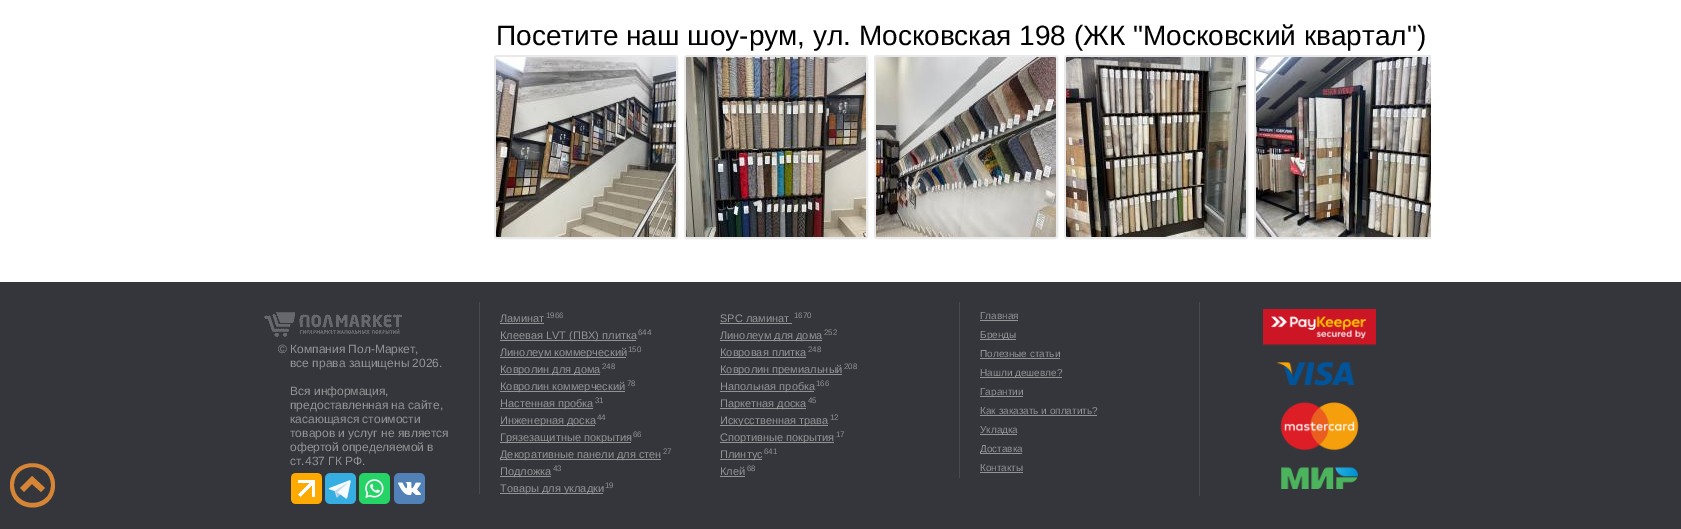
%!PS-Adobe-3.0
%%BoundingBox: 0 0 1681 529
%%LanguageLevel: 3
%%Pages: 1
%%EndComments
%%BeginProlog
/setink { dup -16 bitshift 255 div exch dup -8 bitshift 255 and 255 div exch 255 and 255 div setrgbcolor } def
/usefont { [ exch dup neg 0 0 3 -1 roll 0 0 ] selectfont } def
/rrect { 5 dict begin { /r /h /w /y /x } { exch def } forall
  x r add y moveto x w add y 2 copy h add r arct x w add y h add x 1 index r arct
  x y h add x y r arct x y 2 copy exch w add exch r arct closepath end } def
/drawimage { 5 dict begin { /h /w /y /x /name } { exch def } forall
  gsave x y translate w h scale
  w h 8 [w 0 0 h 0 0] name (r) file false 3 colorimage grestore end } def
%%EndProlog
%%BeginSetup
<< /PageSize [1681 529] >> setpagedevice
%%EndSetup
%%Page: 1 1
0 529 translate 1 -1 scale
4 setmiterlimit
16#FFFFFF setink
0 0 1681 529 rectfill
/LiberationSans-Regular 28 usefont
16#000000 setink
496 45 moveto (Посетите наш шоу-рум, ул. Московская 198 \(ЖК "Московский квартал"\)) show
16#E9E9E9 setink
2 setlinewidth
495 56 182 182 2 rrect stroke
(img1.raw) 496 57 180 180 drawimage
685 56 182 182 2 rrect stroke
(img2.raw) 686 57 180 180 drawimage
875 56 182 182 2 rrect stroke
(img3.raw) 876 57 180 180 drawimage
1065 56 182 182 2 rrect stroke
(img4.raw) 1066 57 180 180 drawimage
gsave
491 52 940 190 rectclip
1255 56 182 182 2 rrect stroke
grestore
(img5.raw) 1256 57 175 180 drawimage
16#34363B setink
0 282 1681 247 rectfill
16#D68537 setink
10 485 moveto 10 515 55 515 55 485 curveto 55 456 10 456 10 485 curveto closepath 51 485 moveto 51 509 14 509 14 485 curveto 14 461 51 461 51 485 curveto closepath 41 492 moveto 45 488 lineto 32 476 lineto 20 488 lineto 24 492 lineto 32 484 lineto closepath fill
(img6.raw) 264 312 138 25 drawimage
/LiberationSans-Regular 12 usefont
16#939396 setink
[
    [(© Компания Пол-Маркет,) 278 353]
    [(все права защищены 2026.) 290 367]
    [(Вся информация,) 290 395]
    [(предоставленная на сайте,) 290 409]
    [(касающаяся стоимости) 290 423]
    [(товаров и услуг не является) 290 437]
    [(офертой определяемой в) 290 451]
    [(ст.437 ГК РФ.) 290 465]
] { aload pop moveto show } forall
(img7.raw) 291 473 31 31 drawimage
(img8.raw) 325 473 31 31 drawimage
(img9.raw) 359 473 31 31 drawimage
(img10.raw) 394 473 31 31 drawimage
16#494A4F setink
479 302 1 192 rectfill
/LiberationSans-Regular 11 usefont
16#939396 setink
500 322 moveto (Ламинат) show
500 323 44 1 rectfill
/LiberationSans-Regular 8 usefont
16#909090 setink
546 318 moveto (1966) show
/LiberationSans-Regular 11 usefont
16#939396 setink
720 322 moveto (SPC ламинат) show
720 323 72 1 rectfill
/LiberationSans-Regular 8 usefont
16#909090 setink
794 318 moveto (1670) show
16#939396 setink
500 340 136 1 rectfill
/LiberationSans-Regular 11 usefont
500 339 moveto (Клеевая LVT \(ПВХ\) плитка) show
/LiberationSans-Regular 8 usefont
16#909090 setink
638 335 moveto (644) show
16#939396 setink
720 340 102 1 rectfill
/LiberationSans-Regular 11 usefont
720 339 moveto (Линолеум для дома) show
/LiberationSans-Regular 8 usefont
16#909090 setink
824 335 moveto (252) show
16#939396 setink
500 357 126 1 rectfill
/LiberationSans-Regular 11 usefont
500 356 moveto (Линолеум коммерческий) show
/LiberationSans-Regular 8 usefont
16#909090 setink
628 352 moveto (150) show
16#939396 setink
720 357 86 1 rectfill
/LiberationSans-Regular 11 usefont
720 356 moveto (Ковровая плитка) show
/LiberationSans-Regular 8 usefont
16#909090 setink
808 352 moveto (248) show
16#939396 setink
500 374 100 1 rectfill
/LiberationSans-Regular 11 usefont
500 373 moveto (Ковролин для дома) show
/LiberationSans-Regular 8 usefont
16#909090 setink
602 369 moveto (248) show
16#939396 setink
720 374 122 1 rectfill
/LiberationSans-Regular 11 usefont
720 373 moveto (Ковролин премиальный) show
/LiberationSans-Regular 8 usefont
16#909090 setink
844 369 moveto (208) show
16#939396 setink
500 391 125 1 rectfill
/LiberationSans-Regular 11 usefont
500 390 moveto (Ковролин коммерческий) show
/LiberationSans-Regular 8 usefont
16#909090 setink
627 386 moveto (78) show
16#939396 setink
720 391 94 1 rectfill
/LiberationSans-Regular 11 usefont
720 390 moveto (Напольная пробка) show
/LiberationSans-Regular 8 usefont
16#909090 setink
816 386 moveto (166) show
16#939396 setink
500 408 93 1 rectfill
/LiberationSans-Regular 11 usefont
500 407 moveto (Настенная пробка) show
/LiberationSans-Regular 8 usefont
16#909090 setink
595 403 moveto (31) show
16#939396 setink
720 408 86 1 rectfill
/LiberationSans-Regular 11 usefont
720 407 moveto (Паркетная доска) show
/LiberationSans-Regular 8 usefont
16#909090 setink
808 403 moveto (45) show
16#939396 setink
500 425 95 1 rectfill
/LiberationSans-Regular 11 usefont
500 424 moveto (Инженерная доска) show
/LiberationSans-Regular 8 usefont
16#909090 setink
597 420 moveto (44) show
16#939396 setink
720 425 108 1 rectfill
/LiberationSans-Regular 11 usefont
720 424 moveto (Искусственная трава) show
/LiberationSans-Regular 8 usefont
16#909090 setink
830 420 moveto (12) show
16#939396 setink
500 442 131 1 rectfill
/LiberationSans-Regular 11 usefont
500 441 moveto (Грязезащитные покрытия) show
/LiberationSans-Regular 8 usefont
16#909090 setink
633 437 moveto (66) show
16#939396 setink
720 442 114 1 rectfill
/LiberationSans-Regular 11 usefont
720 441 moveto (Спортивные покрытия) show
/LiberationSans-Regular 8 usefont
16#909090 setink
836 437 moveto (17) show
16#939396 setink
500 459 161 1 rectfill
/LiberationSans-Regular 11 usefont
500 458 moveto (Декоративные панели для стен) show
/LiberationSans-Regular 8 usefont
16#909090 setink
663 454 moveto (27) show
16#939396 setink
720 459 42 1 rectfill
/LiberationSans-Regular 11 usefont
720 458 moveto (Плинтус) show
/LiberationSans-Regular 8 usefont
16#909090 setink
764 454 moveto (641) show
16#939396 setink
500 476 51 1 rectfill
/LiberationSans-Regular 11 usefont
500 475 moveto (Подложка) show
/LiberationSans-Regular 8 usefont
16#909090 setink
553 471 moveto (43) show
/LiberationSans-Regular 11 usefont
16#939396 setink
720 475 moveto (Клей) show
720 476 25 1 rectfill
/LiberationSans-Regular 8 usefont
16#909090 setink
747 471 moveto (68) show
16#939396 setink
500 493 103 1 rectfill
/LiberationSans-Regular 11 usefont
500 492 moveto (Товары для укладки) show
/LiberationSans-Regular 8 usefont
16#909090 setink
605 488 moveto (19) show
16#494A4F setink
959 302 1 176 rectfill
/LiberationSans-Regular 10 usefont
16#939396 setink
980 319 moveto (Главная) show
980 320 38 1 rectfill
980 339 36 1 rectfill
980 338 moveto (Бренды) show
980 357 moveto (Полезные статьи) show
980 358 80 1 rectfill
980 377 82 1 rectfill
980 376 moveto (Нашли дешевле?) show
980 396 43 1 rectfill
980 395 moveto (Гарантии) show
980 414 moveto (Как заказать и оплатить?) show
980 415 117 1 rectfill
980 434 37 1 rectfill
980 433 moveto (Укладка) show
980 453 42 1 rectfill
980 452 moveto (Доставка) show
980 471 moveto (Контакты) show
980 472 43 1 rectfill
16#494A4F setink
1199 302 1 194 rectfill
(img11.raw) 1263 309 113 180 drawimage
showpage
%%EOF
